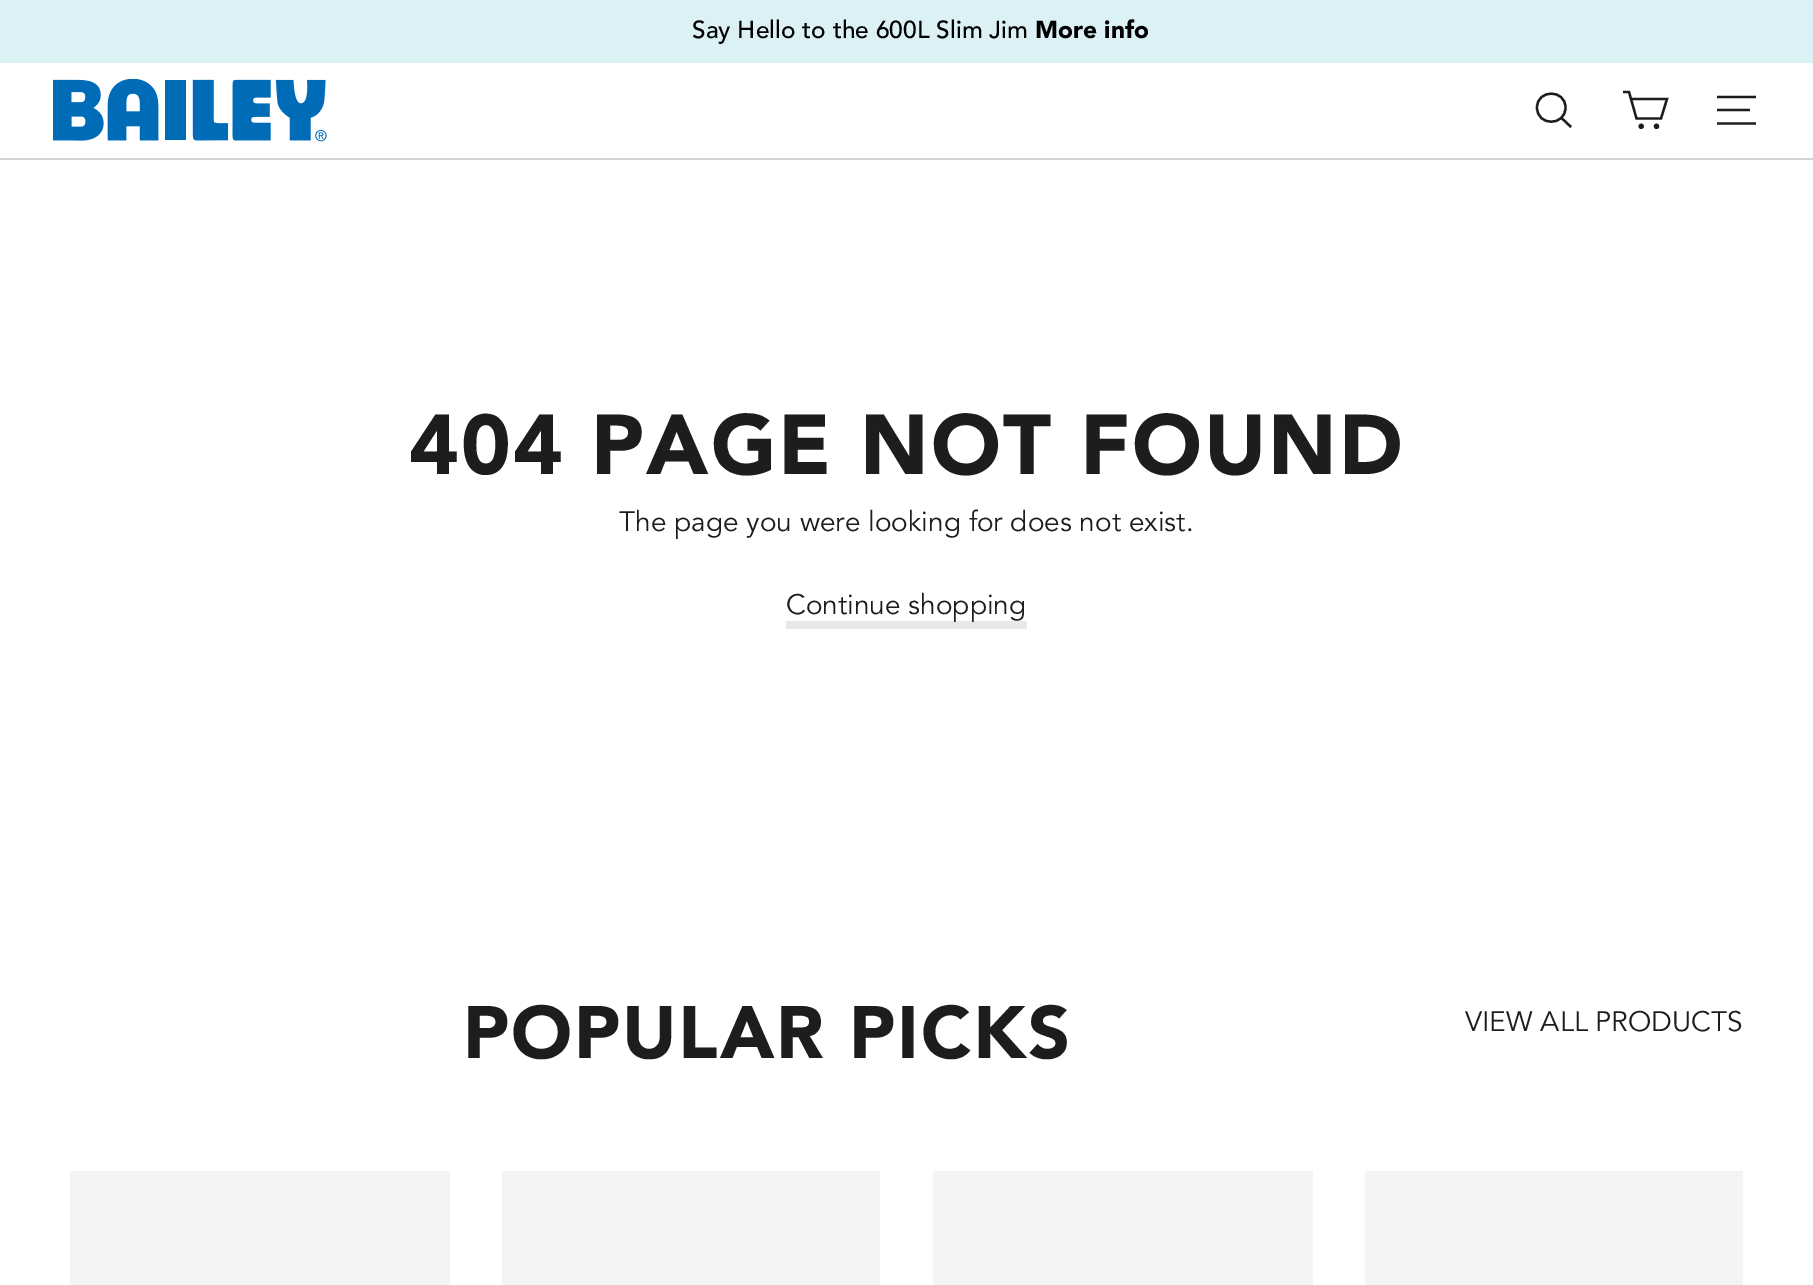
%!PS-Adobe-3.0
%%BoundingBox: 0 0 1813 1285
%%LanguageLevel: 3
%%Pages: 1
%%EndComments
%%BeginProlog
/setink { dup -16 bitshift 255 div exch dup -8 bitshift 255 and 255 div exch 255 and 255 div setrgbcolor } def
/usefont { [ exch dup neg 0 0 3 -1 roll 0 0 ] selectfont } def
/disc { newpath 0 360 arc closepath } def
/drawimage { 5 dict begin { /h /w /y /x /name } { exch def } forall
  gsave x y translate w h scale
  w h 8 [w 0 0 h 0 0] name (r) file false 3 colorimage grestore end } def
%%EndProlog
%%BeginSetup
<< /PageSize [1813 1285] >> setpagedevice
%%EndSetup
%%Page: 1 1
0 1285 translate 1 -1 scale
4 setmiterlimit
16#FFFFFF setink
0 0 1813 1285 rectfill
16#DBF1F5 setink
0 0 1813 63 rectfill
/Avenir-Medium 24.5 usefont
16#000000 setink
692 38 moveto (Say Hello to the 600L Slim Jim) show
/Avenir-Black 24.5 usefont
1035 38 moveto (More info) show
16#D5D5D5 setink
0 158 1813 2 rectfill
(img1.raw) 53 79 274 63 drawimage
16#1C1D1D setink
2.3 setlinewidth
1565.5 107.5 moveto 1565.5 126.5 1537 126.5 1537 107.5 curveto 1537 89 1565.5 89 1565.5 107.5 curveto closepath 1571 127 moveto 1561.5 118 lineto stroke
1631 99 moveto 1667 99 lineto 1661 118.5 lineto 1636.5 118.5 lineto 1629 92 lineto 1623 92 lineto stroke
1641.2 126.3 1.5 disc gsave fill grestore
stroke
1656.5 126.3 1.5 disc gsave fill grestore
stroke
1717 97 moveto 1756 97 lineto 1717 110 moveto 1750 110 lineto 1717 123.5 moveto 1756 123.5 lineto stroke
/Avenir-Black 84 usefont
409 474 moveto 2.1 0 (404 PAGE NOT FOUND) ashow
/Avenir-Regular 28 usefont
619 531 moveto (The page you were looking for does not exist.) show
16#E8E8E8 setink
786 621 241 8 rectfill
16#1C1D1D setink
786 614 moveto (Continue shopping) show
/Avenir-Black 73.5 usefont
463 1058 moveto 1.8 0 (POPULAR PICKS) ashow
/Avenir-Regular 28 usefont
1465 1031 moveto (VIEW ALL PRODUCTS) show
[
    [70 1171 380 114 16#F4F4F4]
    [502 1171 378 114 16#F4F4F4]
    [933 1171 380 114 16#F4F4F4]
    [1365 1171 378 114 16#F4F4F4]
] { aload pop setink rectfill } forall
showpage
%%EOF
